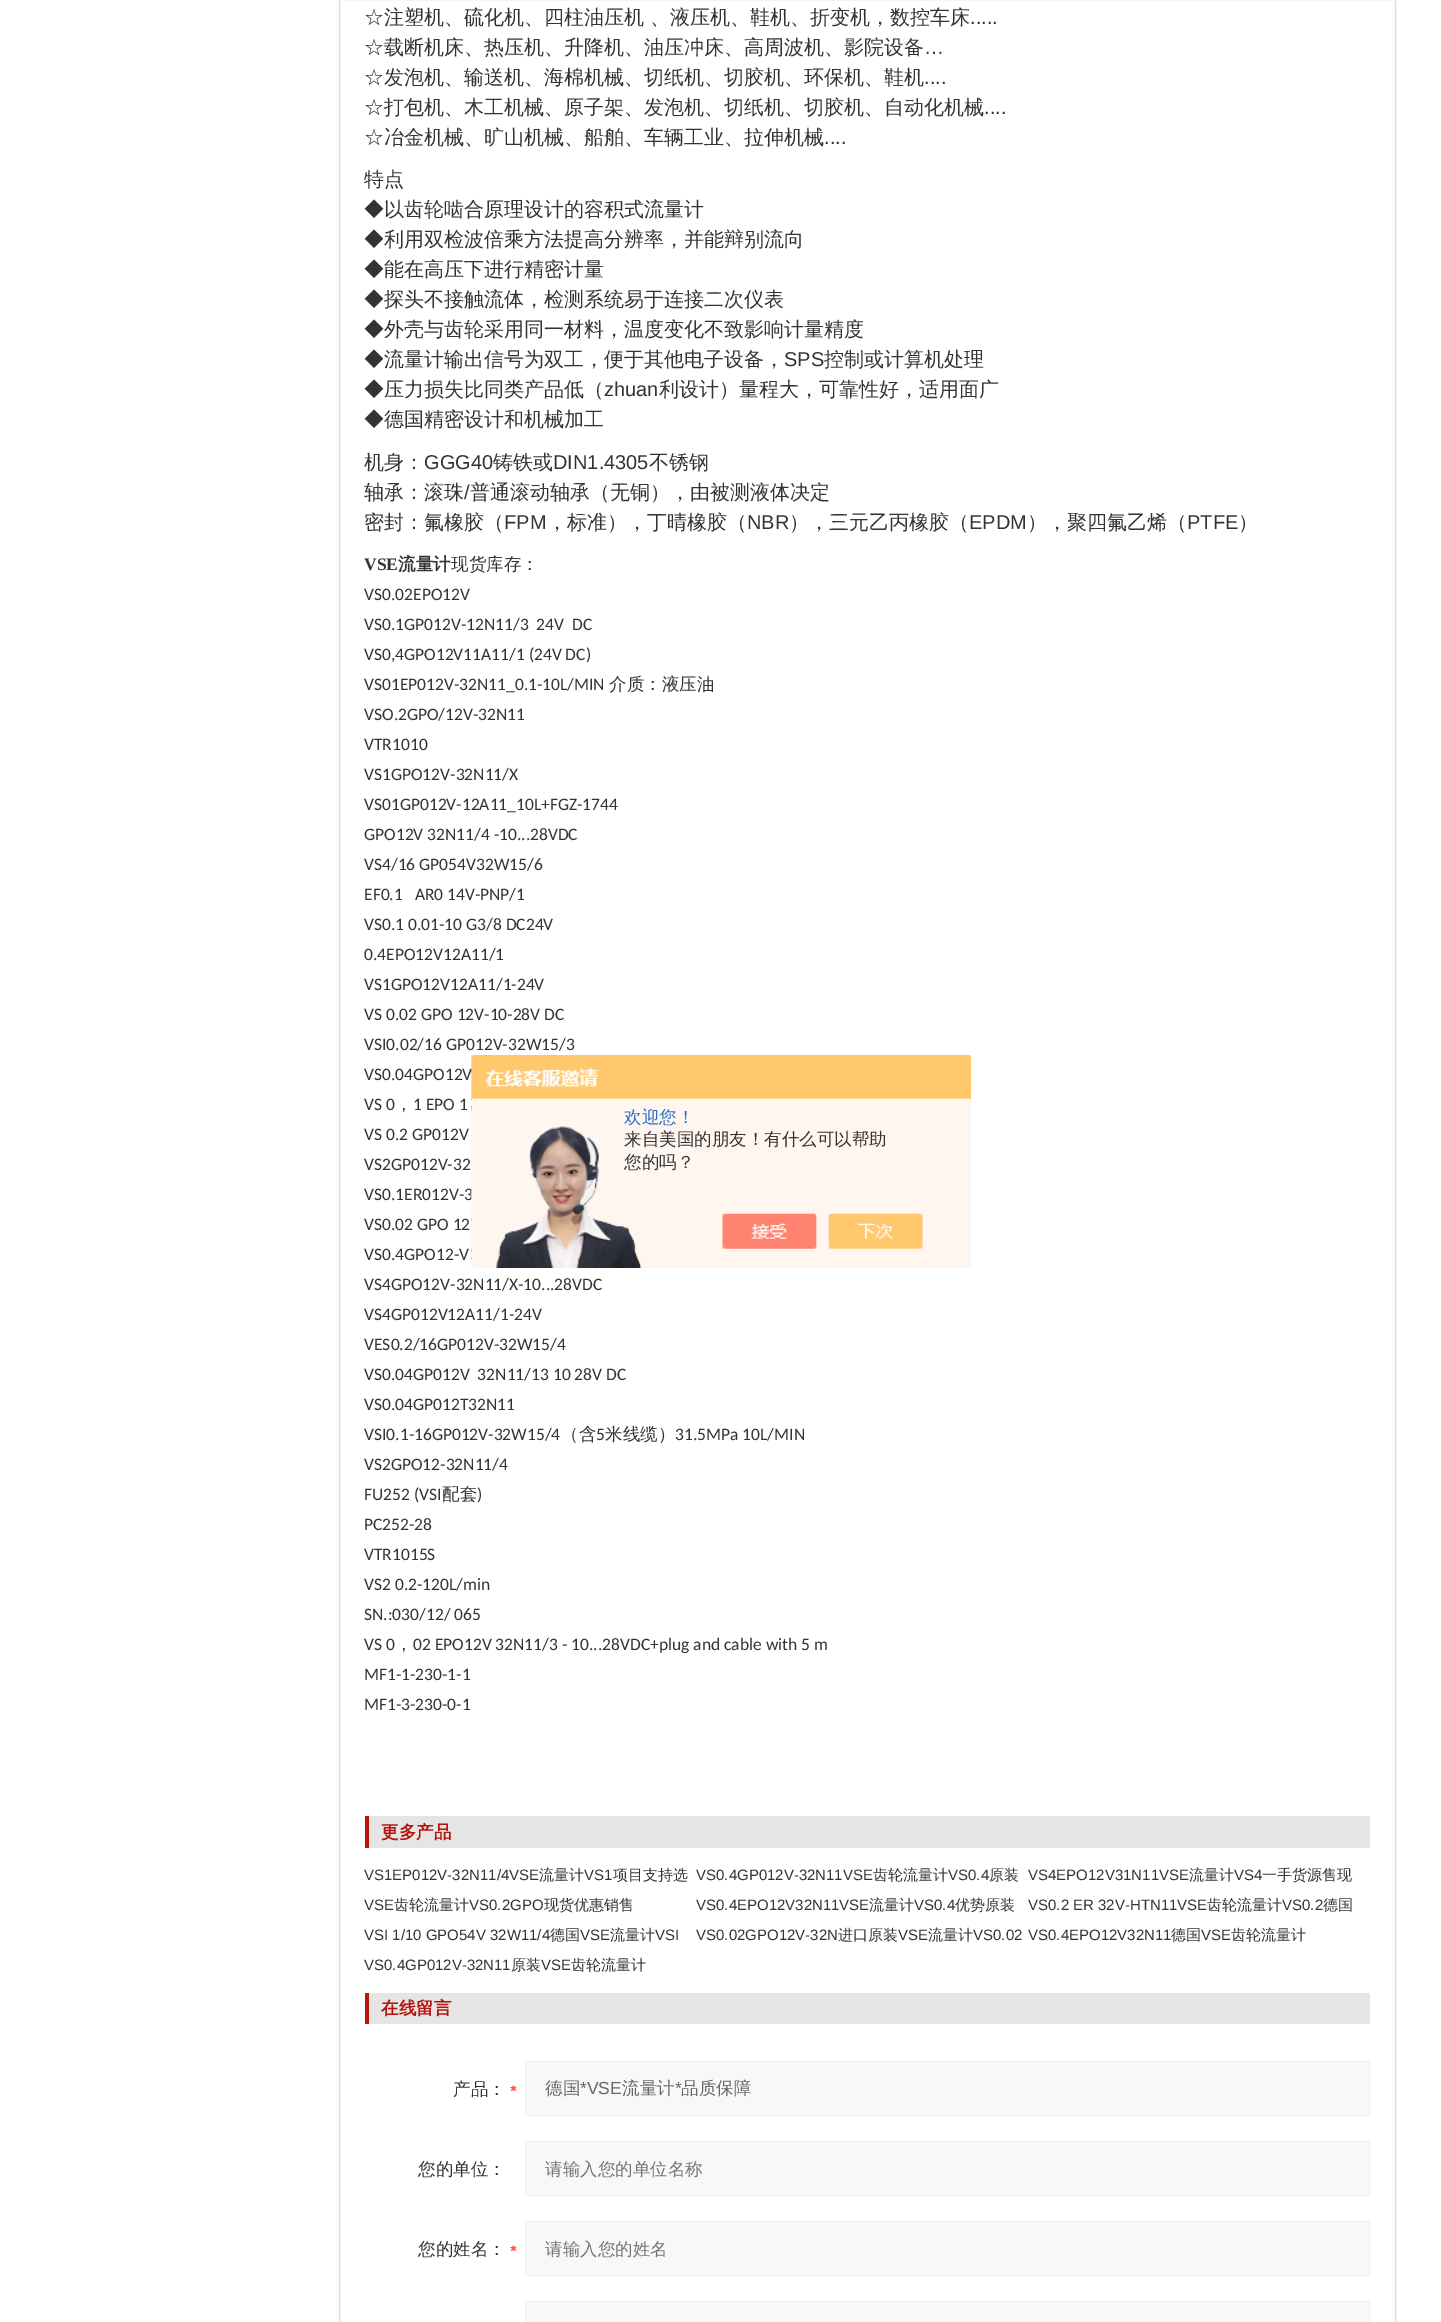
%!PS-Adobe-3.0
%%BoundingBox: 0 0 1441 2322
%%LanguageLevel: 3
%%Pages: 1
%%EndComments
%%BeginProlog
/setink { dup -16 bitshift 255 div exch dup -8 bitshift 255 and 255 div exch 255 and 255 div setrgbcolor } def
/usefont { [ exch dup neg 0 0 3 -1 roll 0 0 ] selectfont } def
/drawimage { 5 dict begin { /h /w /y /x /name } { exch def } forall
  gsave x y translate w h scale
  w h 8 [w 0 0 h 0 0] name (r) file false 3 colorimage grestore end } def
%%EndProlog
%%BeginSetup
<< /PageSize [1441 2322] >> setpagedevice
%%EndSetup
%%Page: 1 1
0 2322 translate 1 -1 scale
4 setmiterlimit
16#FFFFFF setink
0 0 1441 2322 rectfill
16#DDDDDD setink
339.5 -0.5 1056 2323 rectstroke
/WenQuanYiZenHei-Medium 20 usefont
16#333333 setink
364 24 moveto (☆注塑机、硫化机、四柱油压机 、液压机、鞋机、折变机，数控车床) show
/LiberationSans-Regular 20 usefont
970 24 moveto (.....) show
/WenQuanYiZenHei-Medium 20 usefont
364 54 moveto (☆载断机床、热压机、升降机、油压冲床、高周波机、影院设备) show
/LiberationSans-Regular 20 usefont
924 54 moveto (…) show
/WenQuanYiZenHei-Medium 20 usefont
364 84 moveto (☆发泡机、输送机、海棉机械、切纸机、切胶机、环保机、鞋机) show
/LiberationSans-Regular 20 usefont
924 84 moveto (....) show
/WenQuanYiZenHei-Medium 20 usefont
364 114 moveto (☆打包机、木工机械、原子架、发泡机、切纸机、切胶机、自动化机械) show
/LiberationSans-Regular 20 usefont
984 114 moveto (....) show
/WenQuanYiZenHei-Medium 20 usefont
364 144 moveto (☆冶金机械、旷山机械、船舶、车辆工业、拉伸机械) show
/LiberationSans-Regular 20 usefont
824 144 moveto (....) show
/WenQuanYiZenHei-Medium 20 usefont
[
    [(特点) 364 186]
    [(◆以齿轮啮合原理设计的容积式流量计) 364 216]
    [(◆利用双检波倍乘方法提高分辨率，并能辩别流向) 364 246]
    [(◆能在高压下进行精密计量) 364 276]
    [(◆探头不接触流体，检测系统易于连接二次仪表) 364 306]
    [(◆外壳与齿轮采用同一材料，温度变化不致影响计量精度) 364 336]
    [(◆流量计输出信号为双工，便于其他电子设备，) 364 366]
] { aload pop moveto show } forall
/LiberationSans-Regular 20 usefont
784 366 moveto (SPS) show
/WenQuanYiZenHei-Medium 20 usefont
824 366 moveto (控制或计算机处理) show
364 396 moveto (◆压力损失比同类产品低（) show
/LiberationSans-Regular 20 usefont
604 396 moveto (zhuan) show
/WenQuanYiZenHei-Medium 20 usefont
[
    [(利设计）量程大，可靠性好，适用面广) 659 396]
    [(◆德国精密设计和机械加工) 364 426]
    [(机身：) 364 469]
] { aload pop moveto show } forall
/LiberationSans-Regular 20 usefont
424 469 moveto (GGG40) show
/WenQuanYiZenHei-Medium 20 usefont
493 469 moveto (铸铁或) show
/LiberationSans-Regular 20 usefont
553 469 moveto (DIN1.4305) show
/WenQuanYiZenHei-Medium 20 usefont
649 469 moveto (不锈钢) show
364 499 moveto (轴承：滚珠) show
/LiberationSans-Regular 20 usefont
464 499 moveto (/) show
/WenQuanYiZenHei-Medium 20 usefont
470 499 moveto (普通滚动轴承（无铜），由被测液体决定) show
364 529 moveto (密封：氟橡胶（) show
/LiberationSans-Regular 20 usefont
504 529 moveto (FPM) show
/WenQuanYiZenHei-Medium 20 usefont
547 529 moveto (，标准），丁晴橡胶（) show
/LiberationSans-Regular 20 usefont
747 529 moveto (NBR) show
/WenQuanYiZenHei-Medium 20 usefont
789 529 moveto (），三元乙丙橡胶（) show
/LiberationSans-Regular 20 usefont
969 529 moveto (EPDM) show
/WenQuanYiZenHei-Medium 20 usefont
1027 529 moveto (），聚四氟乙烯（) show
/LiberationSans-Regular 20 usefont
1187 529 moveto (PTFE) show
/WenQuanYiZenHei-Medium 20 usefont
1238 529 moveto (）) show
/LiberationSerif-Bold 17.5 usefont
364 570 moveto (VSE) show
/WenQuanYiZenHei-Bold 17.5 usefont
398 570 moveto (流量计) show
/WenQuanYiZenHei-Medium 17.5 usefont
451 570 moveto (现货库存：) show
/Carlito-Regular 17.5 usefont
[
    [(VS0.02EPO12V) 364 600]
    [(VS0.1GP012V-12N11/3  24V  DC) 364 630]
    [(VS0,4GPO12V11A11/1 \(24V DC\)) 364 660]
    [(VS01EP012V-32N11_0.1-10L/MIN) 364 690]
] { aload pop moveto show } forall
/WenQuanYiZenHei-Medium 17.5 usefont
609 690 moveto (介质：液压油) show
/Carlito-Regular 17.5 usefont
[
    [(VSO.2GPO/12V-32N11) 364 720]
    [(VTR1010) 364 750]
    [(VS1GPO12V-32N11/X) 364 780]
    [(VS01GP012V-12A11_10L+FGZ-1744) 364 810]
    [(GPO12V 32N11/4 -10...28VDC) 364 840]
    [(VS4/16 GP054V32W15/6) 364 870]
    [(EF0.1   AR0 14V-PNP/1) 364 900]
    [(VS0.1 0.01-10 G3/8 DC24V) 364 930]
    [(0.4EPO12V12A11/1) 364 960]
    [(VS1GPO12V12A11/1-24V) 364 990]
    [(VS 0.02 GPO 12V-10-28V DC) 364 1020]
    [(VSI0.02/16 GP012V-32W15/3) 364 1050]
    [(VS0.04GPO12V) 364 1080]
    [(VS 0) 364 1110]
] { aload pop moveto show } forall
/WenQuanYiZenHei-Medium 17.5 usefont
395 1110 moveto (，) show
/Carlito-Regular 17.5 usefont
[
    [(1 EPO 1) 413 1110]
    [(VS 0.2 GP012V) 364 1140]
    [(VS2GP012V-32) 364 1170]
    [(VS0.1ER012V-3) 364 1200]
    [(VS0.02 GPO 12) 364 1230]
    [(VS0.4GPO12-V) 364 1260]
    [(VS4GPO12V-32N11/X-10...28VDC) 364 1290]
    [(VS4GP012V12A11/1-24V) 364 1320]
    [(VES0.2/16GP012V-32W15/4) 364 1350]
    [(VS0.04GP012V  32N11/13 10 28V DC) 364 1380]
    [(VS0.04GP012T32N11) 364 1410]
    [(VSI0.1-16GP012V-32W15/4) 364 1440]
] { aload pop moveto show } forall
/WenQuanYiZenHei-Medium 17.5 usefont
561 1440 moveto (（含) show
/Carlito-Regular 17.5 usefont
596 1440 moveto (5) show
/WenQuanYiZenHei-Medium 17.5 usefont
605 1440 moveto (米线缆）) show
/Carlito-Regular 17.5 usefont
[
    [(31.5MPa 10L/MIN) 675 1440]
    [(VS2GPO12-32N11/4) 364 1470]
    [(FU252 \(VSI) 364 1500]
] { aload pop moveto show } forall
/WenQuanYiZenHei-Medium 17.5 usefont
442 1500 moveto (配套) show
/Carlito-Regular 17.5 usefont
[
    [(\)) 477 1500]
    [(PC252-28) 364 1530]
    [(VTR1015S) 364 1560]
    [(VS2 0.2-120L/min) 364 1590]
    [(SN.:030/12/ 065) 364 1620]
    [(VS 0) 364 1650]
] { aload pop moveto show } forall
/WenQuanYiZenHei-Medium 17.5 usefont
395 1650 moveto (，) show
/Carlito-Regular 17.5 usefont
[
    [(02 EPO12V 32N11/3 - 10...28VDC+plug and cable with 5 m) 413 1650]
    [(MF1-1-230-1-1) 364 1680]
    [(MF1-3-230-0-1) 364 1710]
] { aload pop moveto show } forall
16#E5E5E5 setink
369 1816 1001 32 rectfill
16#B6120F setink
365 1816 4 32 rectfill
/WenQuanYiZenHei-Bold 17.5 usefont
381 1838 moveto (更多产品) show
/LiberationSans-Regular 15 usefont
16#333333 setink
364 1880 moveto (VS1EP012V-32N11/4VSE) show
/WenQuanYiZenHei-Medium 15 usefont
539 1880 moveto (流量计) show
/LiberationSans-Regular 15 usefont
584 1880 moveto (VS1) show
/WenQuanYiZenHei-Medium 15 usefont
613 1880 moveto (项目支持选) show
/LiberationSans-Regular 15 usefont
696 1880 moveto (VS0.4GP012V-32N11VSE) show
/WenQuanYiZenHei-Medium 15 usefont
873 1880 moveto (齿轮流量计) show
/LiberationSans-Regular 15 usefont
948 1880 moveto (VS0.4) show
/WenQuanYiZenHei-Medium 15 usefont
989 1880 moveto (原装) show
/LiberationSans-Regular 15 usefont
1028 1880 moveto (VS4EPO12V31N11VSE) show
/WenQuanYiZenHei-Medium 15 usefont
1189 1880 moveto (流量计) show
/LiberationSans-Regular 15 usefont
1234 1880 moveto (VS4) show
/WenQuanYiZenHei-Medium 15 usefont
1262 1880 moveto (一手货源售现) show
/LiberationSans-Regular 15 usefont
364 1910 moveto (VSE) show
/WenQuanYiZenHei-Medium 15 usefont
394 1910 moveto (齿轮流量计) show
/LiberationSans-Regular 15 usefont
469 1910 moveto (VS0.2GPO) show
/WenQuanYiZenHei-Medium 15 usefont
544 1910 moveto (现货优惠销售) show
/LiberationSans-Regular 15 usefont
696 1910 moveto (VS0.4EPO12V32N11VSE) show
/WenQuanYiZenHei-Medium 15 usefont
869 1910 moveto (流量计) show
/LiberationSans-Regular 15 usefont
914 1910 moveto (VS0.4) show
/WenQuanYiZenHei-Medium 15 usefont
955 1910 moveto (优势原装) show
/LiberationSans-Regular 15 usefont
1028 1910 moveto (VS0.2 ER 32V-HTN11VSE) show
/WenQuanYiZenHei-Medium 15 usefont
1207 1910 moveto (齿轮流量计) show
/LiberationSans-Regular 15 usefont
1282 1910 moveto (VS0.2) show
/WenQuanYiZenHei-Medium 15 usefont
1323 1910 moveto (德国) show
/LiberationSans-Regular 15 usefont
364 1940 moveto (VSI 1/10 GPO54V 32W11/4) show
/WenQuanYiZenHei-Medium 15 usefont
550 1940 moveto (德国) show
/LiberationSans-Regular 15 usefont
580 1940 moveto (VSE) show
/WenQuanYiZenHei-Medium 15 usefont
610 1940 moveto (流量计) show
/LiberationSans-Regular 15 usefont
655 1940 moveto (VSI) show
696 1940 moveto (VS0.02GPO12V-32N) show
/WenQuanYiZenHei-Medium 15 usefont
838 1940 moveto (进口原装) show
/LiberationSans-Regular 15 usefont
898 1940 moveto (VSE) show
/WenQuanYiZenHei-Medium 15 usefont
928 1940 moveto (流量计) show
/LiberationSans-Regular 15 usefont
973 1940 moveto (VS0.02) show
1028 1940 moveto (VS0.4EPO12V32N11) show
/WenQuanYiZenHei-Medium 15 usefont
1171 1940 moveto (德国) show
/LiberationSans-Regular 15 usefont
1201 1940 moveto (VSE) show
/WenQuanYiZenHei-Medium 15 usefont
1231 1940 moveto (齿轮流量计) show
/LiberationSans-Regular 15 usefont
364 1970 moveto (VS0.4GP012V-32N11) show
/WenQuanYiZenHei-Medium 15 usefont
511 1970 moveto (原装) show
/LiberationSans-Regular 15 usefont
541 1970 moveto (VSE) show
/WenQuanYiZenHei-Medium 15 usefont
571 1970 moveto (齿轮流量计) show
16#E5E5E5 setink
369 1993 1001 31 rectfill
16#B6120F setink
365 1993 4 31 rectfill
/WenQuanYiZenHei-Bold 17.5 usefont
381 2014 moveto (在线留言) show
(img1.raw) 510 2085 7 6 drawimage
/WenQuanYiZenHei-Medium 17.5 usefont
16#333333 setink
453 2095 moveto (产品：) show
16#F8F8F8 setink
525.5 2061.5 moveto 1369.5 2061.5 lineto 1369.5 2115.5 lineto 525.5 2115.5 lineto closepath gsave fill grestore
16#F1F1F1 setink
stroke
16#666666 setink
545 2094 moveto (德国) show
/LiberationSans-Regular 17.5 usefont
580 2094 moveto (*VSE) show
/WenQuanYiZenHei-Medium 17.5 usefont
622 2094 moveto (流量计) show
/LiberationSans-Regular 17.5 usefont
675 2094 moveto (*) show
/WenQuanYiZenHei-Medium 17.5 usefont
681 2094 moveto (品质保障) show
16#333333 setink
418 2175 moveto (您的单位：) show
16#F8F8F8 setink
525.5 2141.5 moveto 1369.5 2141.5 lineto 1369.5 2195.5 lineto 525.5 2195.5 lineto closepath gsave fill grestore
16#F1F1F1 setink
stroke
16#757575 setink
545 2175 moveto (请输入您的单位名称) show
(img1.raw) 510 2245 7 6 drawimage
16#333333 setink
418 2255 moveto (您的姓名：) show
16#F8F8F8 setink
525.5 2221.5 moveto 1369.5 2221.5 lineto 1369.5 2275.5 lineto 525.5 2275.5 lineto closepath gsave fill grestore
16#F1F1F1 setink
stroke
16#757575 setink
545 2255 moveto (请输入您的姓名) show
16#F8F8F8 setink
525.5 2301.5 moveto 1369.5 2301.5 lineto 1369.5 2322.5 lineto 525.5 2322.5 lineto closepath gsave fill grestore
16#F1F1F1 setink
stroke
(img2.raw) 471 1055 500 213 drawimage
16#2E6EC6 setink
624 1123 moveto (欢迎您！) show
16#333333 setink
624 1145 moveto (来自美国的朋友！有什么可以帮助) show
624 1168 moveto (您的吗？) show
showpage
%%EOF
